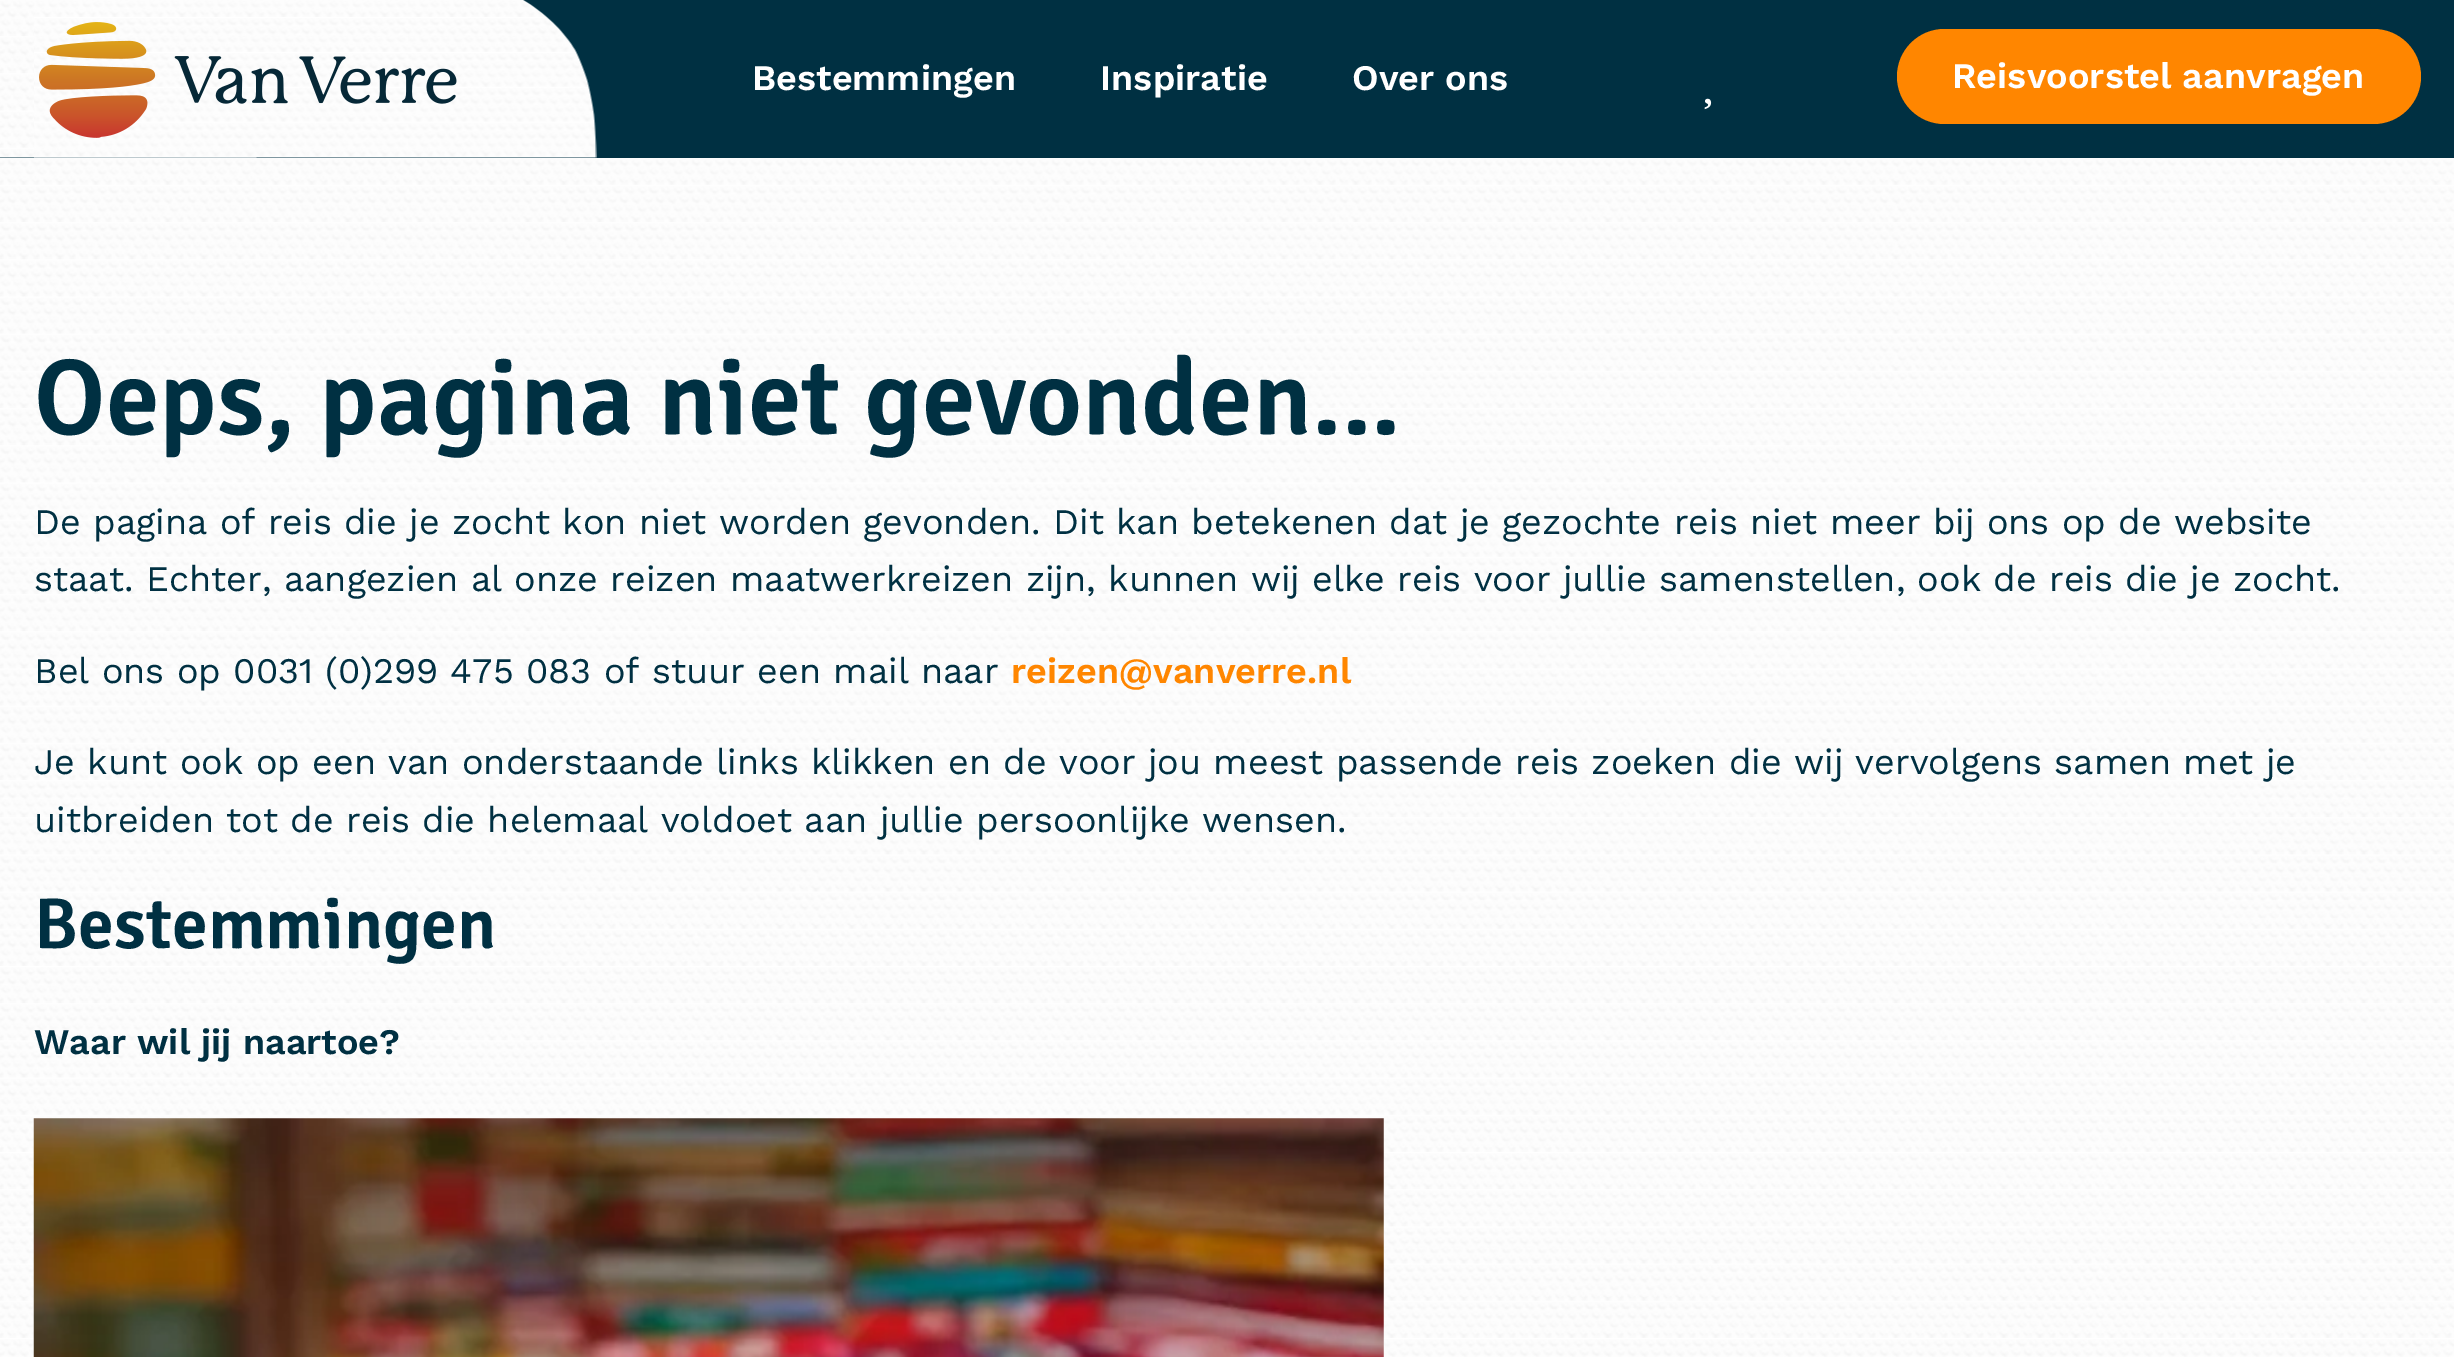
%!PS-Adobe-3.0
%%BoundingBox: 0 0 2454 1357
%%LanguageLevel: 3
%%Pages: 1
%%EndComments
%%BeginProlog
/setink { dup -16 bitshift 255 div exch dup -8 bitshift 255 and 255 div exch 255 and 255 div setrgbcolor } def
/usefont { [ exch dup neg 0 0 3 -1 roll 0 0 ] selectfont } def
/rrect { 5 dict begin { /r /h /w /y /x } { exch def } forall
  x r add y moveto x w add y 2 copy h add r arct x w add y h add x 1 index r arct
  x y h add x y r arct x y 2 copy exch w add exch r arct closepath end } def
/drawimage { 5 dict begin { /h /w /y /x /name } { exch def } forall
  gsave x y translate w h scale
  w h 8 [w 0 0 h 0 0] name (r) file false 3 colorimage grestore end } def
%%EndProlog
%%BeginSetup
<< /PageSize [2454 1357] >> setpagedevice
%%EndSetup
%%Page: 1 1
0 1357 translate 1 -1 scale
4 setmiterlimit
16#FFFFFF setink
0 0 2454 1357 rectfill
(img1.raw) 0 158 2454 1199 drawimage
16#003042 setink
0 0 2454 158 rectfill
(img2.raw) 0 0 257 158 drawimage
(img3.raw) 34 0 563 158 drawimage
(img4.raw) 39 22 418 116 drawimage
/WorkSans-SemiBold 36 usefont
16#FFFFFF setink
[
    [(Bestemmingen) 752 90]
    [(Inspiratie) 1100 90]
    [(Over ons) 1352 90]
] { aload pop moveto show } forall
16#FF8600 setink
1897 29 524 95 47.5 rrect fill
16#FFFFFF setink
1952 88 moveto (Reisvoorstel aanvragen) show
(img5.raw) 1704 98 8 12 drawimage
/Signika-SemiBold 108 usefont
16#003042 setink
34 434 moveto (Oeps, pagina niet gevonden...) show
/WorkSans-Regular 36 usefont
[
    [(De pagina of reis die je zocht kon niet worden gevonden. Dit kan betekenen dat je gezochte reis niet meer bij ons op de website) 34 534]
    [(staat. Echter, aangezien al onze reizen maatwerkreizen zijn, kunnen wij elke reis voor jullie samenstellen, ook de reis die je zocht.) 34 591]
    [(Bel ons op 0031 \(0\)299 475 083 of stuur een mail naar) 34 683]
] { aload pop moveto show } forall
/WorkSans-SemiBold 36 usefont
16#FF8600 setink
1011 683 moveto (reizen@vanverre.nl) show
/WorkSans-Regular 36 usefont
16#003042 setink
34 774 moveto (Je kunt ook op een van onderstaande links klikken en de voor jou meest passende reis zoeken die wij vervolgens samen met je) show
34 832 moveto (uitbreiden tot de reis die helemaal voldoet aan jullie persoonlijke wensen.) show
/Signika-SemiBold 72 usefont
34 948 moveto (Bestemmingen) show
/WorkSans-SemiBold 36 usefont
34 1054 moveto (Waar wil jij naartoe?) show
(img6.raw) 33 1118 1351 239 drawimage
showpage
%%EOF
